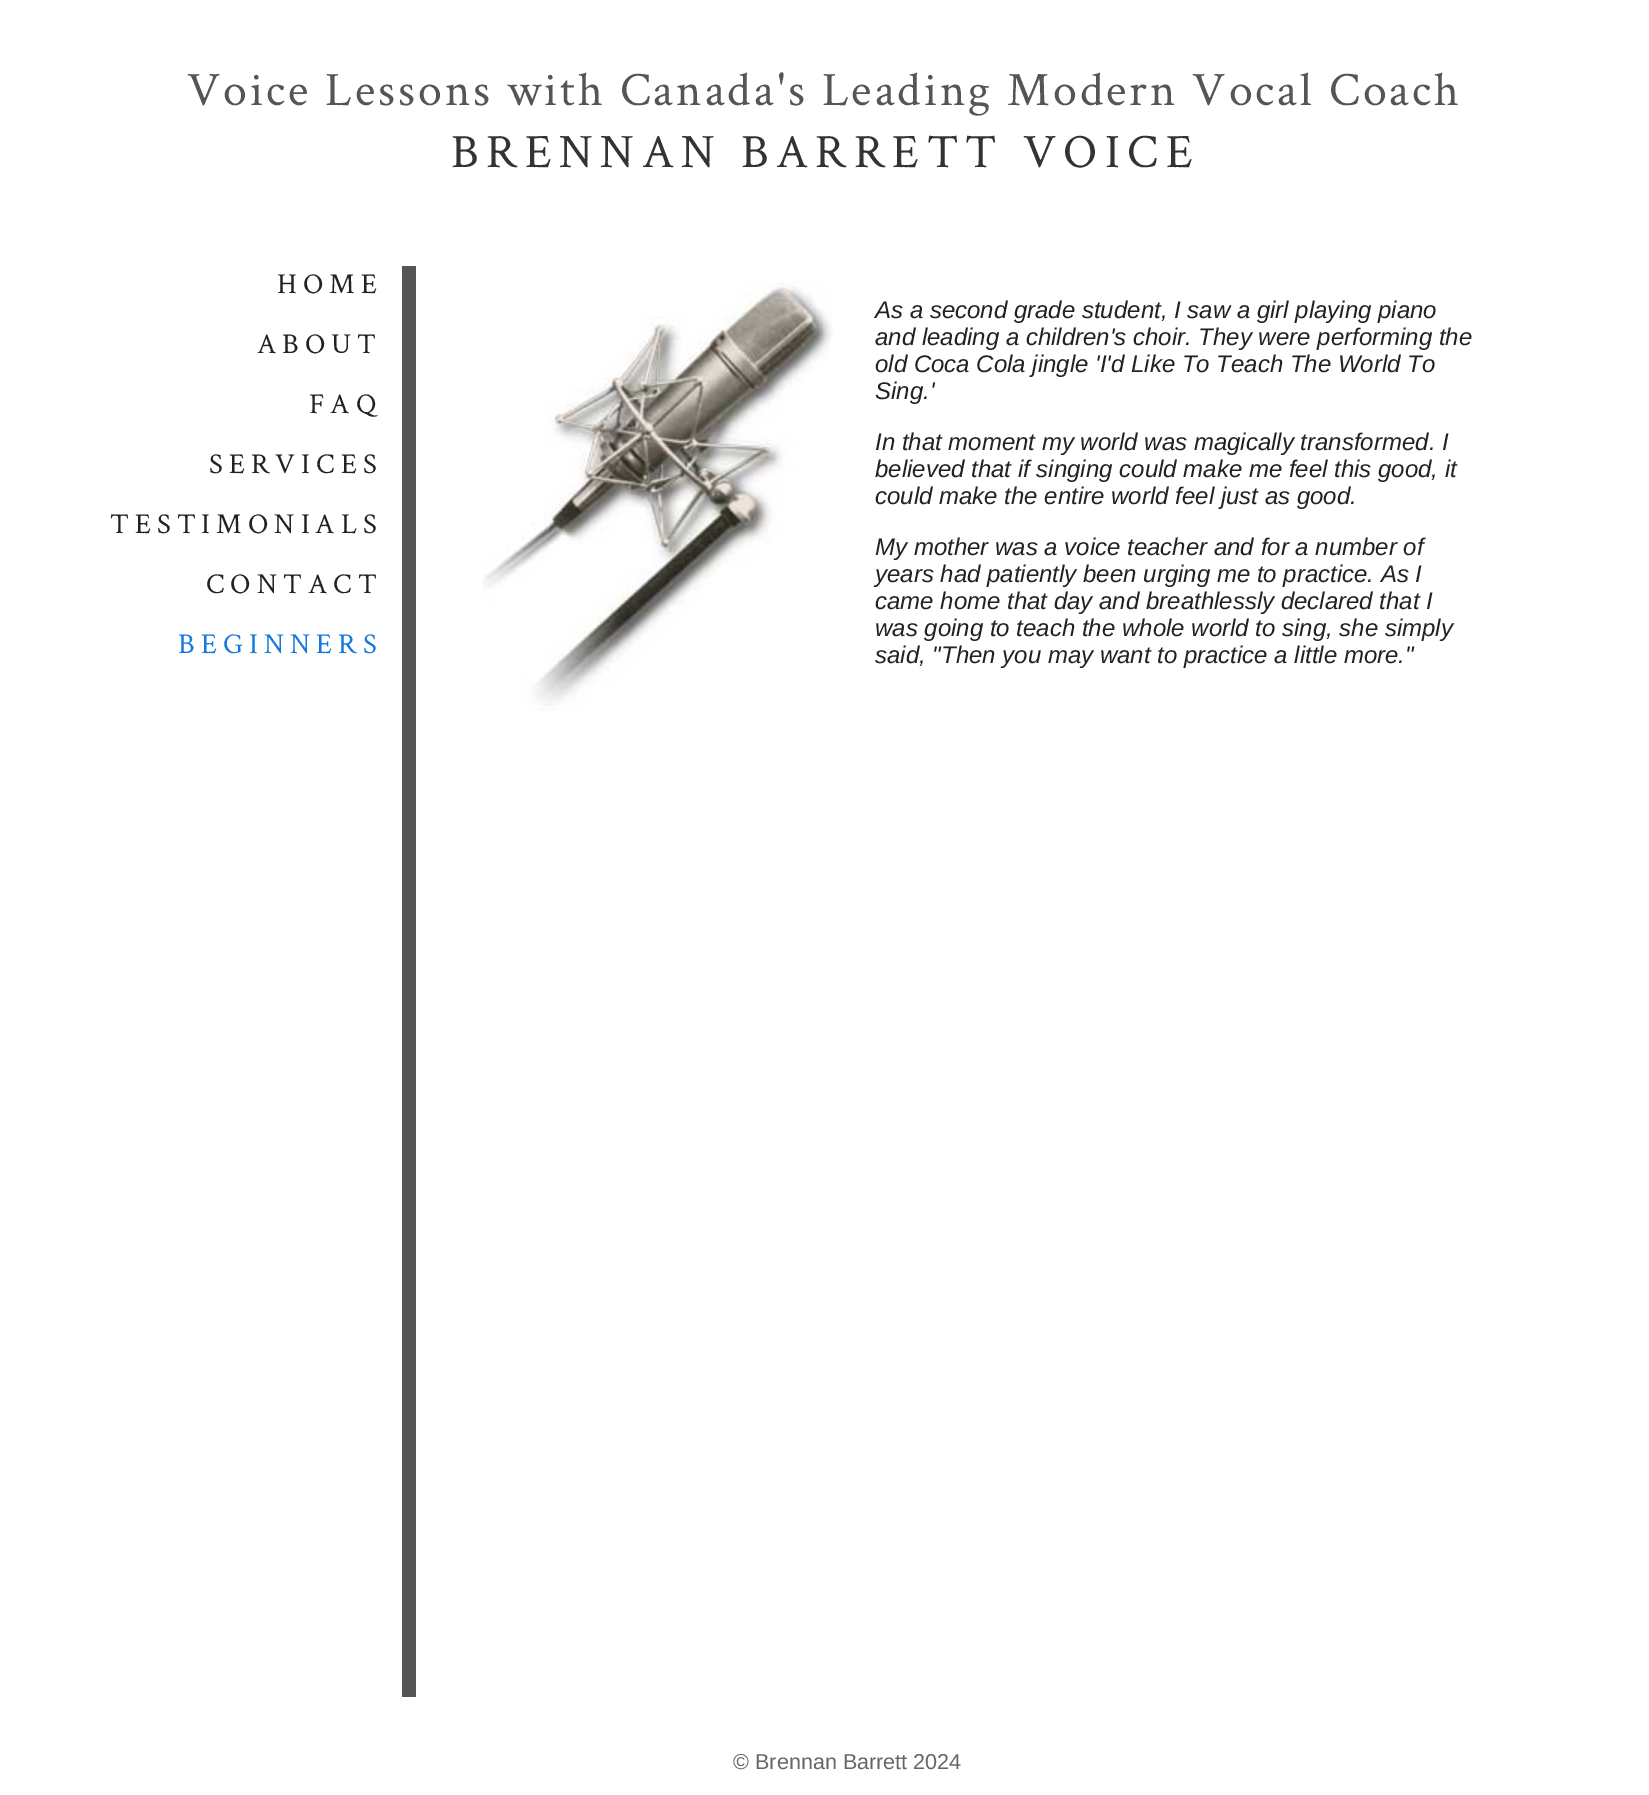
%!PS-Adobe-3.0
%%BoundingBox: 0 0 1649 1795
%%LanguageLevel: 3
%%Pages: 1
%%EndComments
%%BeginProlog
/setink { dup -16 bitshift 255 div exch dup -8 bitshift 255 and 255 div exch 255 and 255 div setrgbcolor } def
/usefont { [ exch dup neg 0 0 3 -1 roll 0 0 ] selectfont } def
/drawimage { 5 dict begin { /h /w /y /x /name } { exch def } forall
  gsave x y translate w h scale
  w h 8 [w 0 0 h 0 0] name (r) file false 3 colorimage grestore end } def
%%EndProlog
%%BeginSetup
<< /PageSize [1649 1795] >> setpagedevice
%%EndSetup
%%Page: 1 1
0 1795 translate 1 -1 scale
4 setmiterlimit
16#FFFFFF setink
0 0 1649 1795 rectfill
/CrimsonText-Regular 48 usefont
16#555555 setink
187 105 moveto 3 0 (Voice Lessons with Canada's Leading Modern Vocal Coach) ashow
16#333333 setink
451 167 moveto 7.5 0 (BRENNAN BARRETT VOICE) ashow
16#555555 setink
402 266 14 1431 rectfill
/CrimsonText-Regular 28.75 usefont
16#222222 setink
277 293 moveto 6 0 (HOME) ashow
257 353 moveto 6 0 (ABOUT) ashow
309 413 moveto 6 0 (FAQ) ashow
209 473 moveto 6 0 (SERVICES) ashow
110 533 moveto 6 0 (TESTIMONIALS) ashow
206 593 moveto 6 0 (CONTACT) ashow
16#1479DE setink
178 653 moveto 6 0 (BEGINNERS) ashow
(img1.raw) 483 281 350 430 drawimage
/LiberationSans-Italic 24 usefont
16#222222 setink
[
    [(As a second grade student, I saw a girl playing piano) 875 318]
    [(and leading a children's choir. They were performing the) 875 345]
    [(old Coca Cola jingle 'I'd Like To Teach The World To) 875 372]
    [(Sing.') 875 399]
    [(In that moment my world was magically transformed. I) 875 450]
    [(believed that if singing could make me feel this good, it) 875 477]
    [(could make the entire world feel just as good.) 875 504]
    [(My mother was a voice teacher and for a number of) 875 555]
    [(years had patiently been urging me to practice. As I) 875 582]
    [(came home that day and breathlessly declared that I) 875 609]
    [(was going to teach the whole world to sing, she simply) 875 636]
    [(said, "Then you may want to practice a little more.") 875 663]
] { aload pop moveto show } forall
/LiberationSans-Regular 21.6 usefont
16#666666 setink
733 1769 moveto (© Brennan Barrett 2024) show
showpage
%%EOF
